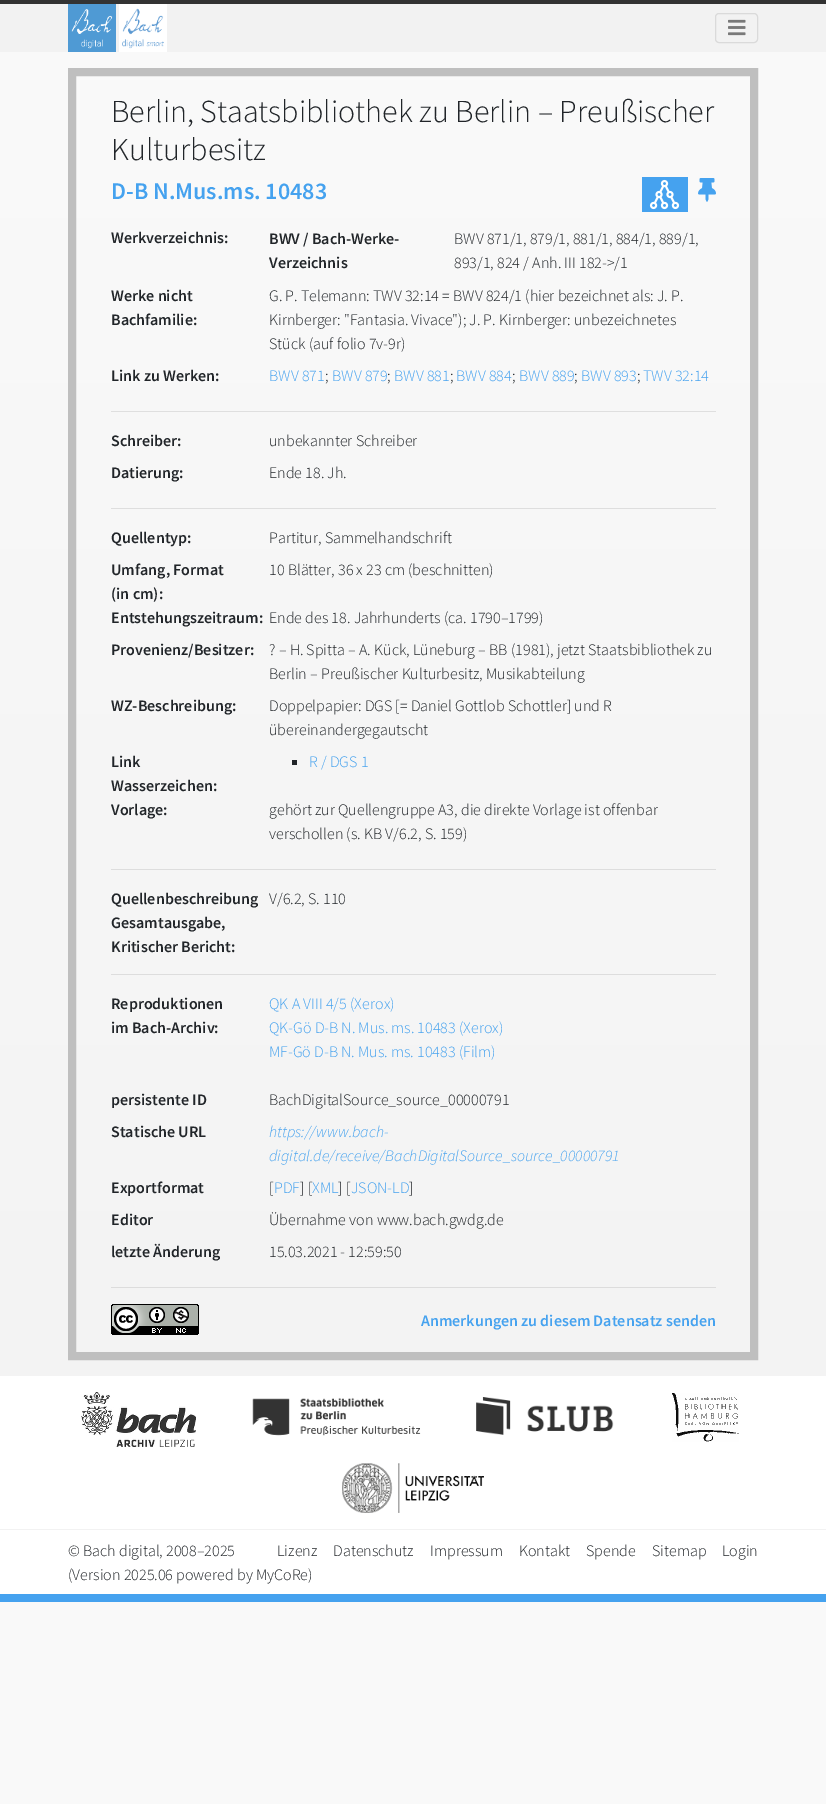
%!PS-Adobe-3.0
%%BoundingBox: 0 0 826 1804
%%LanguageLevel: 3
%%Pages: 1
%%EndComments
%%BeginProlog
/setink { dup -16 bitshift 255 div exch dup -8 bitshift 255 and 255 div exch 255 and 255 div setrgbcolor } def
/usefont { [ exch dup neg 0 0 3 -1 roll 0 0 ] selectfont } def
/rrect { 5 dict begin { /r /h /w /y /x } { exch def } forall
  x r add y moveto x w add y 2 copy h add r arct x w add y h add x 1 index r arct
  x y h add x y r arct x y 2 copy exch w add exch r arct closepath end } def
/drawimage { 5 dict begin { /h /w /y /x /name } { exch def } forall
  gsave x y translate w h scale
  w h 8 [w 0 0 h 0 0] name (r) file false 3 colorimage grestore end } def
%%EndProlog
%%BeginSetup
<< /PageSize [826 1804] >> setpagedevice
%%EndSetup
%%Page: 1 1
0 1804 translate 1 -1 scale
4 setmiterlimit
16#FFFFFF setink
0 0 826 1804 rectfill
gsave 0 52 moveto 826 52 lineto 826 1376 lineto 0 1376 lineto closepath clip newpath
<< /ShadingType 2 /ColorSpace /DeviceRGB /Coords [413 0 413 1602] /Extend [true true] /Function << /FunctionType 2 /Domain [0 1] /C0 [0.98 0.98 0.98] /C1 [0.949 0.949 0.949] /N 1 >> >> shfill grestore
gsave 0 1602 moveto 826 1602 lineto 826 1804 lineto 0 1804 lineto closepath clip newpath
<< /ShadingType 2 /ColorSpace /DeviceRGB /Coords [413 1602 413 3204] /Extend [true true] /Function << /FunctionType 2 /Domain [0 1] /C0 [0.98 0.98 0.98] /C1 [0.949 0.949 0.949] /N 1 >> >> shfill grestore
16#333333 setink
0 0 826 4 rectfill
16#F2F2F2 setink
0 4 826 48 rectfill
(img1.raw) 68 4 48 48 drawimage
16#FFFFFF setink
119 4 48 48 rectfill
(img2.raw) 122 8 42 41 drawimage
16#DADADA setink
715.5 13.5 42 29 3.5 rrect stroke
(img3.raw) 728 19 18 17 drawimage
16#BFBFBF setink
8 setlinewidth
72 72 682 1284 rectstroke
/SourceSansPro-Light 32 usefont
16#212529 setink
111 122 moveto (Berlin, Staatsbibliothek zu Berlin – Preußischer) show
111 160 moveto (Kulturbesitz) show
/SourceSansPro-SemiBold 24 usefont
16#45A2EF setink
111 199 moveto (D-B N.Mus.ms. 10483) show
642 177 46 35 rectfill
(img4.raw) 649 179 31 31 drawimage
(img5.raw) 698 178 18 24 drawimage
/SourceSansPro-SemiBold 16 usefont
16#212529 setink
[
    [(Werkverzeichnis:) 111 243]
    [(BWV / Bach-Werke-) 269 244]
    [(Verzeichnis) 269 268]
] { aload pop moveto show } forall
/SourceSansPro-Light 16 usefont
454 244 moveto (BWV 871/1, 879/1, 881/1, 884/1, 889/1,) show
454 268 moveto (893/1, 824 / Anh. III 182->/1) show
/SourceSansPro-SemiBold 16 usefont
111 301 moveto (Werke nicht) show
111 325 moveto (Bachfamilie:) show
/SourceSansPro-Light 16 usefont
[
    [(G. P. Telemann: TWV 32:14 = BWV 824/1 \(hier bezeichnet als: J. P.) 269 301]
    [(Kirnberger: "Fantasia. Vivace"\); J. P. Kirnberger: unbezeichnetes) 269 325]
    [(Stück \(auf folio 7v-9r\)) 269 349]
] { aload pop moveto show } forall
/SourceSansPro-SemiBold 16 usefont
111 381 moveto (Link zu Werken:) show
/SourceSansPro-Light 16 usefont
16#45A2EF setink
269 381 moveto (BWV 871) show
16#212529 setink
325 381 moveto (;) show
16#45A2EF setink
332 381 moveto (BWV 879) show
16#212529 setink
387 381 moveto (;) show
16#45A2EF setink
394 381 moveto (BWV 881) show
16#212529 setink
450 381 moveto (;) show
16#45A2EF setink
456 381 moveto (BWV 884) show
16#212529 setink
512 381 moveto (;) show
16#45A2EF setink
519 381 moveto (BWV 889) show
16#212529 setink
574 381 moveto (;) show
16#45A2EF setink
581 381 moveto (BWV 893) show
16#212529 setink
637 381 moveto (;) show
16#45A2EF setink
643 381 moveto (TWV 32:14) show
16#DFDFDF setink
111 411 605 1 rectfill
/SourceSansPro-SemiBold 16 usefont
16#212529 setink
111 446 moveto (Schreiber:) show
/SourceSansPro-Light 16 usefont
269 446 moveto (unbekannter Schreiber) show
/SourceSansPro-SemiBold 16 usefont
111 478 moveto (Datierung:) show
/SourceSansPro-Light 16 usefont
269 478 moveto (Ende 18. Jh.) show
16#DEDEDE setink
111 508 605 1 rectfill
/SourceSansPro-SemiBold 16 usefont
16#212529 setink
111 543 moveto (Quellentyp:) show
/SourceSansPro-Light 16 usefont
269 543 moveto (Partitur, Sammelhandschrift) show
/SourceSansPro-SemiBold 16 usefont
111 575 moveto (Umfang, Format) show
111 599 moveto (\(in cm\):) show
/SourceSansPro-Light 16 usefont
269 575 moveto (10 Blätter, 36 x 23 cm \(beschnitten\)) show
/SourceSansPro-SemiBold 16 usefont
111 623 moveto (Entstehungszeitraum:) show
/SourceSansPro-Light 16 usefont
269 623 moveto (Ende des 18. Jahrhunderts \(ca. 1790–1799\)) show
/SourceSansPro-SemiBold 16 usefont
111 655 moveto (Provenienz/Besitzer:) show
/SourceSansPro-Light 16 usefont
269 655 moveto (? – H. Spitta – A. Kück, Lüneburg – BB \(1981\), jetzt Staatsbibliothek zu) show
269 679 moveto (Berlin – Preußischer Kulturbesitz, Musikabteilung) show
/SourceSansPro-SemiBold 16 usefont
111 711 moveto (WZ-Beschreibung:) show
/SourceSansPro-Light 16 usefont
269 711 moveto (Doppelpapier: DGS [= Daniel Gottlob Schottler] und R) show
269 735 moveto (übereinandergegautscht) show
/SourceSansPro-SemiBold 16 usefont
111 767 moveto (Link) show
111 791 moveto (Wasserzeichen:) show
292 760 5 5 rectfill
/SourceSansPro-Light 16 usefont
16#45A2EF setink
309 767 moveto (R / DGS 1) show
/SourceSansPro-SemiBold 16 usefont
16#212529 setink
111 815 moveto (Vorlage:) show
/SourceSansPro-Light 16 usefont
269 815 moveto (gehört zur Quellengruppe A3, die direkte Vorlage ist offenbar) show
269 839 moveto (verschollen \(s. KB V/6.2, S. 159\)) show
16#DDDDDD setink
111 869 605 1 rectfill
/SourceSansPro-SemiBold 16 usefont
16#212529 setink
[
    [(Quellenbeschreibung) 111 904]
    [(Gesamtausgabe,) 111 928]
    [(Kritischer Bericht:) 111 952]
] { aload pop moveto show } forall
/SourceSansPro-Light 16 usefont
269 904 moveto (V/6.2, S. 110) show
16#DDDDDD setink
111 974 605 1 rectfill
/SourceSansPro-SemiBold 16 usefont
16#212529 setink
111 1009 moveto (Reproduktionen) show
111 1033 moveto (im Bach-Archiv:) show
/SourceSansPro-Light 16 usefont
16#45A2EF setink
[
    [(QK A VIII 4/5 \(Xerox\)) 269 1009]
    [(QK-Gö D-B N. Mus. ms. 10483 \(Xerox\)) 269 1033]
    [(MF-Gö D-B N. Mus. ms. 10483 \(Film\)) 269 1057]
] { aload pop moveto show } forall
/SourceSansPro-SemiBold 16 usefont
16#212529 setink
111 1105 moveto (persistente ID) show
/SourceSansPro-Light 16 usefont
269 1105 moveto (BachDigitalSource_source_00000791) show
/SourceSansPro-SemiBold 16 usefont
111 1137 moveto (Statische URL) show
/SourceSansPro-LightItalic 16 usefont
16#45A2EF setink
269 1137 moveto (https://www.bach-) show
269 1161 moveto (digital.de/receive/BachDigitalSource_source_00000791) show
/SourceSansPro-SemiBold 16 usefont
16#212529 setink
111 1193 moveto (Exportformat) show
/SourceSansPro-Light 16 usefont
269 1193 moveto ([) show
16#45A2EF setink
274 1193 moveto (PDF) show
16#212529 setink
300 1193 moveto (] [) show
16#45A2EF setink
312 1193 moveto (XML) show
16#212529 setink
338 1193 moveto (] [) show
16#45A2EF setink
351 1193 moveto (JSON-LD) show
16#212529 setink
409 1193 moveto (]) show
/SourceSansPro-SemiBold 16 usefont
111 1225 moveto (Editor) show
/SourceSansPro-Light 16 usefont
269 1225 moveto (Übernahme von www.bach.gwdg.de) show
/SourceSansPro-SemiBold 16 usefont
111 1257 moveto (letzte Änderung) show
/SourceSansPro-Light 16 usefont
269 1257 moveto (15.03.2021 - 12:59:50) show
16#DCDCDC setink
111 1287 605 1 rectfill
(img6.raw) 111 1304 88 31 drawimage
/SourceSansPro-SemiBold 16 usefont
16#45A2EF setink
421 1326 moveto (Anmerkungen zu diesem Datensatz senden) show
0 1594 826 8 rectfill
(img7.raw) 81 1392 115 55 drawimage
(img8.raw) 252 1397 169 39 drawimage
(img9.raw) 476 1397 138 38 drawimage
(img10.raw) 672 1393 67 49 drawimage
(img11.raw) 342 1463 142 50 drawimage
16#F2F2F2 setink
0 1529 826 1 rectfill
/SourceSansPro-Light 16 usefont
16#212529 setink
[
    [(© Bach digital, 2008–2025) 68 1556]
    [(\(Version 2025.06 powered by MyCoRe\)) 68 1580]
    [(Datenschutz) 333 1556]
    [(Kontakt) 519 1556]
    [(Spende) 586 1556]
    [(Lizenz) 277 1556]
    [(Impressum) 430 1556]
    [(Sitemap) 652 1556]
    [(Login) 722 1556]
] { aload pop moveto show } forall
showpage
%%EOF
